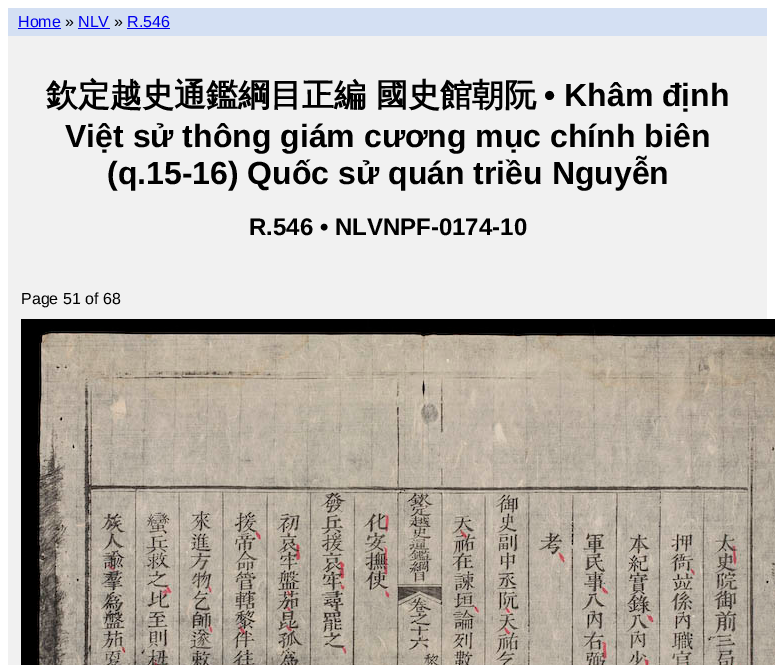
%!PS-Adobe-3.0
%%BoundingBox: 0 0 775 665
%%LanguageLevel: 3
%%Pages: 1
%%EndComments
%%BeginProlog
/setink { dup -16 bitshift 255 div exch dup -8 bitshift 255 and 255 div exch 255 and 255 div setrgbcolor } def
/usefont { [ exch dup neg 0 0 3 -1 roll 0 0 ] selectfont } def
/drawimage { 5 dict begin { /h /w /y /x /name } { exch def } forall
  gsave x y translate w h scale
  w h 8 [w 0 0 h 0 0] name (r) file false 3 colorimage grestore end } def
%%EndProlog
%%BeginSetup
<< /PageSize [775 665] >> setpagedevice
%%EndSetup
%%Page: 1 1
0 665 translate 1 -1 scale
4 setmiterlimit
16#FFFFFF setink
0 0 775 665 rectfill
16#F1F1F1 setink
8 36 759 629 rectfill
16#D4E0F3 setink
8 8 759 28 rectfill
/LiberationSans-Regular 16 usefont
16#0000EE setink
18 27 moveto (Home) show
18 28 43 1 rectfill
16#000000 setink
65 27 moveto (») show
16#0000EE setink
78 27 moveto (NLV) show
78 28 32 1 rectfill
16#000000 setink
114 27 moveto (») show
16#0000EE setink
127 27 moveto (R.546) show
127 28 43 1 rectfill
/WenQuanYiZenHei-Bold 32 usefont
16#000000 setink
46 106 moveto (欽定越史通鑑綱目正編 國史館朝阮) show
/LiberationSans-Bold 32 usefont
[
    [(• Khâm định) 544 106]
    [(Việt sử thông giám cương mục chính biên) 65 147]
    [(\(q.15-16\) Quốc sử quán triều Nguyễn) 107 184]
] { aload pop moveto show } forall
/LiberationSans-Bold 24 usefont
249 235 moveto (R.546 • NLVNPF-0174-10) show
/LiberationSans-Regular 16 usefont
21 304 moveto (Page 51 of 68) show
(img1.raw) 21 319 754 346 drawimage
showpage
%%EOF
